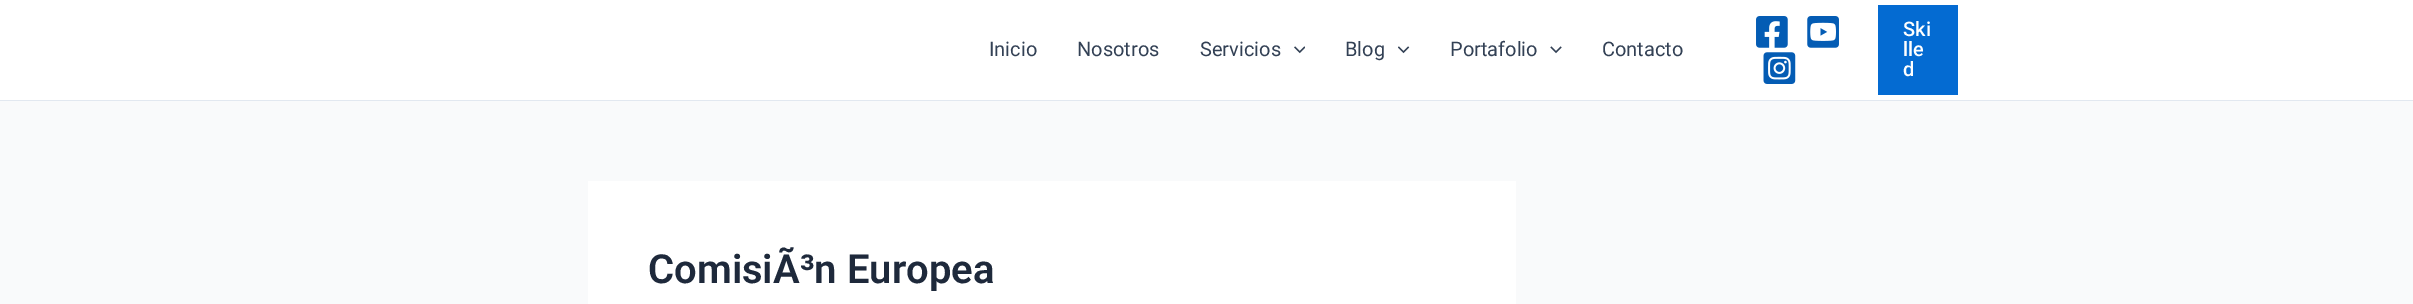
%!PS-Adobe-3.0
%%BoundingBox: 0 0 2413 304
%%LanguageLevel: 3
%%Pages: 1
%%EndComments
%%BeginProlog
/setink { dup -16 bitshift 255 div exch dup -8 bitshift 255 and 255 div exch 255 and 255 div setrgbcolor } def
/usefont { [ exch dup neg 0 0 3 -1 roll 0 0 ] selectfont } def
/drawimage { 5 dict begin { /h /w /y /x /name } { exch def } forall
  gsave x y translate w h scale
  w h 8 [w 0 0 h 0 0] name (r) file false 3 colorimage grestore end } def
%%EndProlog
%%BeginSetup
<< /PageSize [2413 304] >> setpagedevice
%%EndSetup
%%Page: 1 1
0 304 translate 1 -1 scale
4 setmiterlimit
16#F9FAFB setink
0 0 2413 304 rectfill
16#FFFFFF setink
0 0 2413 100 rectfill
16#E2E8F0 setink
0 100 2413 1 rectfill
/Roboto-Regular 20 usefont
16#334155 setink
[
    [(Inicio) 989 56]
    [(Nosotros) 1077 56]
    [(Servicios) 1200 56]
] { aload pop moveto show } forall
(img1.raw) 1294 46 11 8 drawimage
1345 56 moveto (Blog) show
(img2.raw) 1398 46 12 8 drawimage
1450 56 moveto (Portafolio) show
(img3.raw) 1550 46 12 8 drawimage
1602 56 moveto (Contacto) show
(img4.raw) 1756 16 32 32 drawimage
(img5.raw) 1807 16 32 32 drawimage
(img6.raw) 1763 52 33 32 drawimage
16#046BD2 setink
1878 5 80 90 rectfill
/Roboto-Medium 20 usefont
16#FFFFFF setink
[
    [(Ski) 1903 36]
    [(lle) 1903 56]
    [(d) 1903 76]
] { aload pop moveto show } forall
588 181 928 123 rectfill
/Roboto-SemiBold 40 usefont
16#1E293B setink
648 283 moveto (ComisiÃ³n Europea) show
showpage
%%EOF
